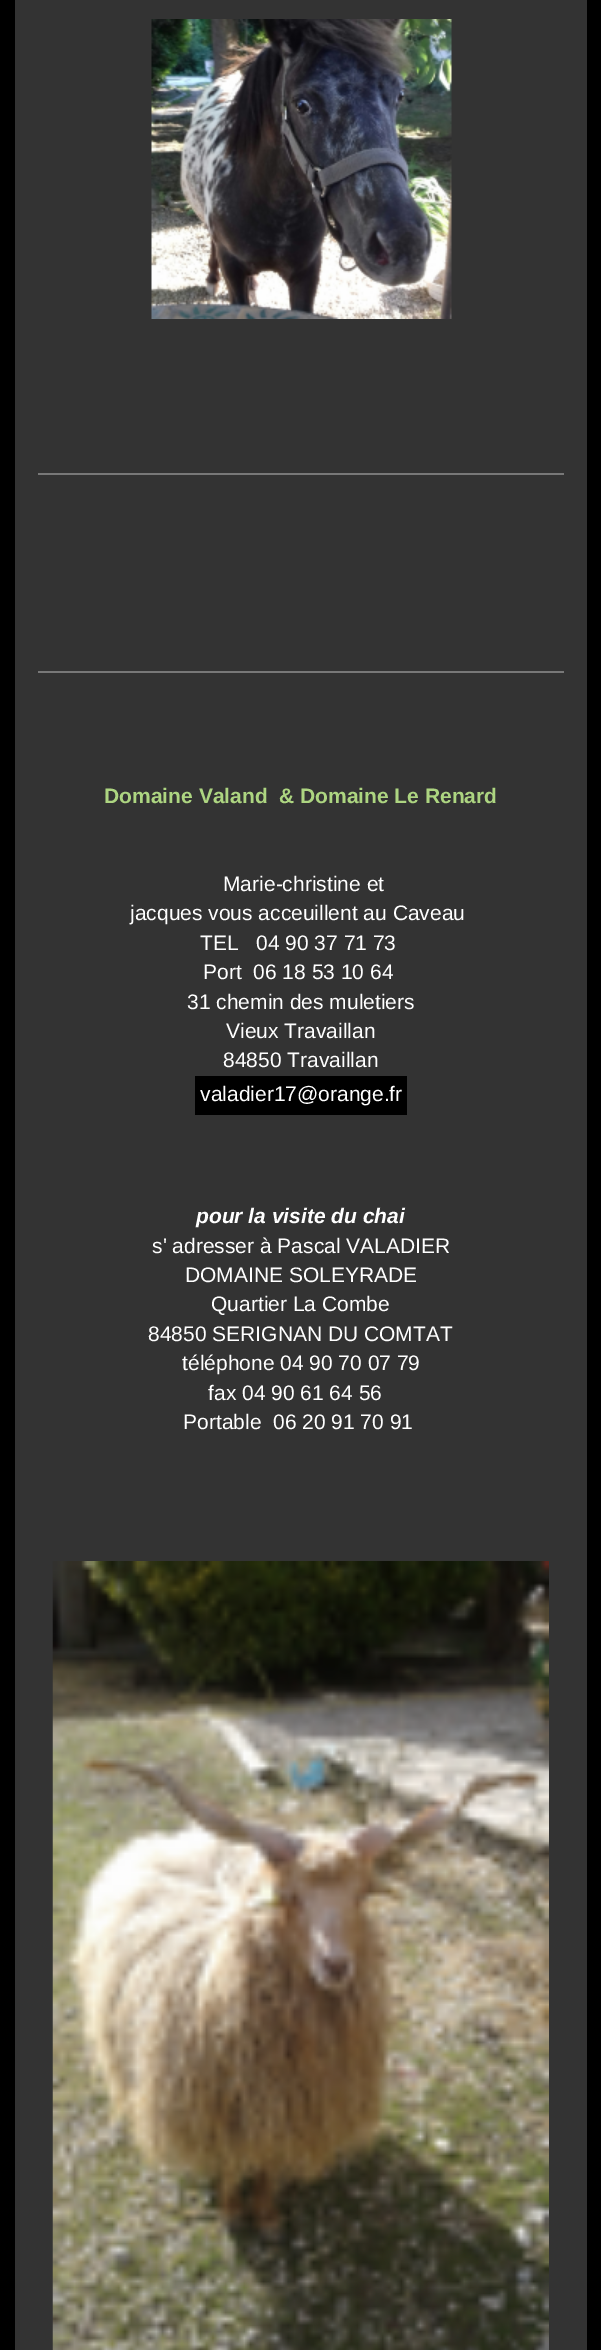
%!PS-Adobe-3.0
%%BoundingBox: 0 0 601 2350
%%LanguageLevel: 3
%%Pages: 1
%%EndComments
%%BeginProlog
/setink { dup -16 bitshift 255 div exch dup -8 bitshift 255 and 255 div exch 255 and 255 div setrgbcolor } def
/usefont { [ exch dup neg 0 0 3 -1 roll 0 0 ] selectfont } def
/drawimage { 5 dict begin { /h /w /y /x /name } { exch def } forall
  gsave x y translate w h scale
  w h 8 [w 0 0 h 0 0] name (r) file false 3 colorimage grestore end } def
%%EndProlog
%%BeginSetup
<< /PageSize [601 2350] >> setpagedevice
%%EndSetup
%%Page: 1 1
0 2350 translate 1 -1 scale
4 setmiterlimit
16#000000 setink
0 0 601 2350 rectfill
16#333333 setink
15 0 572 2350 rectfill
(img1.raw) 151 19 301 300 drawimage
16#787878 setink
38 473 526 2 rectfill
38 671 526 2 rectfill
/LiberationSans-Bold 21 usefont
16#ADD581 setink
104 803 moveto (Domaine Valand  & Domaine Le Renard) show
/LiberationSans-Regular 21 usefont
16#FFFFFF setink
[
    [(Marie-christine et) 223 891]
    [(jacques vous acceuillent au Caveau) 130 920]
    [(TEL   04 90 37 71 73) 200 950]
    [(Port  06 18 53 10 64) 203 979]
    [(31 chemin des muletiers) 187 1009]
    [(Vieux Travaillan) 226 1038]
    [(84850 Travaillan) 223 1067]
] { aload pop moveto show } forall
16#000000 setink
195 1076 212 39 rectfill
16#FFFFFF setink
200 1101 moveto (valadier17@orange.fr) show
/LiberationSans-BoldItalic 21 usefont
196 1223 moveto (pour la visite du chai) show
/LiberationSans-Regular 21 usefont
[
    [(s' adresser à Pascal VALADIER) 152 1253]
    [(DOMAINE SOLEYRADE) 185 1282]
    [(Quartier La Combe) 211 1311]
    [(84850 SERIGNAN DU COMTAT) 148 1341]
    [(téléphone 04 90 70 07 79) 182 1370]
    [(fax 04 90 61 64 56) 208 1400]
    [(Portable  06 20 91 70 91) 183 1429]
] { aload pop moveto show } forall
(img2.raw) 52 1561 497 789 drawimage
showpage
%%EOF
